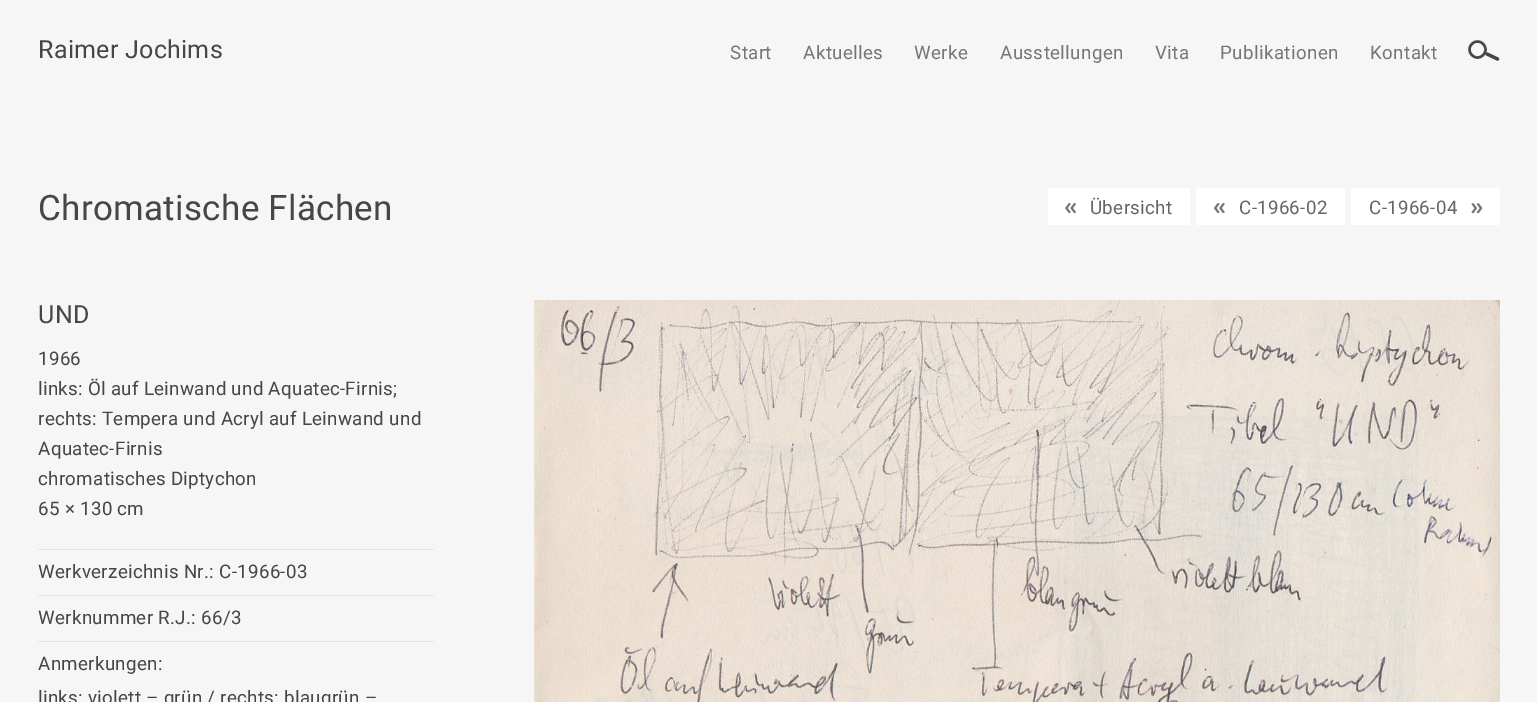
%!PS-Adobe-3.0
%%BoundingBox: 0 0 1537 702
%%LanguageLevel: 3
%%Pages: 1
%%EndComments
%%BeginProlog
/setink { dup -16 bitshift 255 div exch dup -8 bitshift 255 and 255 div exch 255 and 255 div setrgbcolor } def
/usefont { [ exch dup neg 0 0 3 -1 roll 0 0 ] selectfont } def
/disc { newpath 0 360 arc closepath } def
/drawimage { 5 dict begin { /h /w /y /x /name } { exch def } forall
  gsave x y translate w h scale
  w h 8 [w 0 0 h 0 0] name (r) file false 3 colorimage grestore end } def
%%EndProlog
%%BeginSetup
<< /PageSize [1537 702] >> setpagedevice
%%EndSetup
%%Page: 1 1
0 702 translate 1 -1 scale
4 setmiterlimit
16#F6F6F6 setink
0 0 1537 702 rectfill
/Heebo-Regular 25 usefont
16#464646 setink
38 58 moveto 0.3 0 (Raimer Jochims) ashow
/Heebo-Regular 18.75 usefont
16#767676 setink
730 59 moveto 0.4 0 (Start) ashow
803 59 moveto 0.4 0 (Aktuelles) ashow
914 59 moveto 0.4 0 (Werke) ashow
1000 59 moveto 0.4 0 (Ausstellungen) ashow
1155 59 moveto 0.4 0 (Vita) ashow
1220 59 moveto 0.4 0 (Publikationen) ashow
1370 59 moveto 0.4 0 (Kontakt) ashow
16#464646 setink
2.4 setlinewidth
1477.5 49.5 8 disc stroke
3.2 setlinewidth
1 setlinecap
1487 54 moveto 1497.5 59 lineto stroke
/Heebo-Regular 35 usefont
38 220 moveto 0.3 0 (Chromatische Flächen) ashow
16#FFFFFF setink
1048 188 142 37 rectfill
(img1.raw) 1065 203 11 11 drawimage
/Heebo-Regular 18.75 usefont
16#666666 setink
1090 214 moveto 0.3 0 (Übersicht) ashow
16#FFFFFF setink
1196 188 149 37 rectfill
(img2.raw) 1214 203 11 11 drawimage
16#666666 setink
1239 214 moveto 0.3 0 (C-1966-02) ashow
16#FFFFFF setink
1351 188 149 37 rectfill
16#666666 setink
1369 214 moveto 0.3 0 (C-1966-04) ashow
(img3.raw) 1471 203 12 11 drawimage
/Heebo-Regular 25 usefont
16#464646 setink
38 323 moveto 0.3 0 (UND) ashow
/Heebo-Regular 18.75 usefont
38 365 moveto 0.3 0 (1966) ashow
38 395 moveto 0.3 0 (links: Öl auf Leinwand und Aquatec-Firnis;) ashow
38 425 moveto 0.3 0 (rechts: Tempera und Acryl auf Leinwand und) ashow
38 455 moveto 0.3 0 (Aquatec-Firnis) ashow
38 485 moveto 0.3 0 (chromatisches Diptychon) ashow
38 515 moveto 0.3 0 (65 × 130 cm) ashow
16#E5E5E5 setink
38 549 396 1 rectfill
38 595 396 1 rectfill
16#464646 setink
38 578 moveto 0.3 0 (Werkverzeichnis Nr.: C-1966-03) ashow
16#E5E5E5 setink
38 641 396 1 rectfill
16#464646 setink
38 624 moveto 0.3 0 (Werknummer R.J.: 66/3) ashow
38 670 moveto 0.3 0 (Anmerkungen:) ashow
38 704 moveto 0.3 0 (links: violett – grün / rechts: blaugrün –) ashow
(img4.raw) 534 300 966 402 drawimage
showpage
%%EOF
